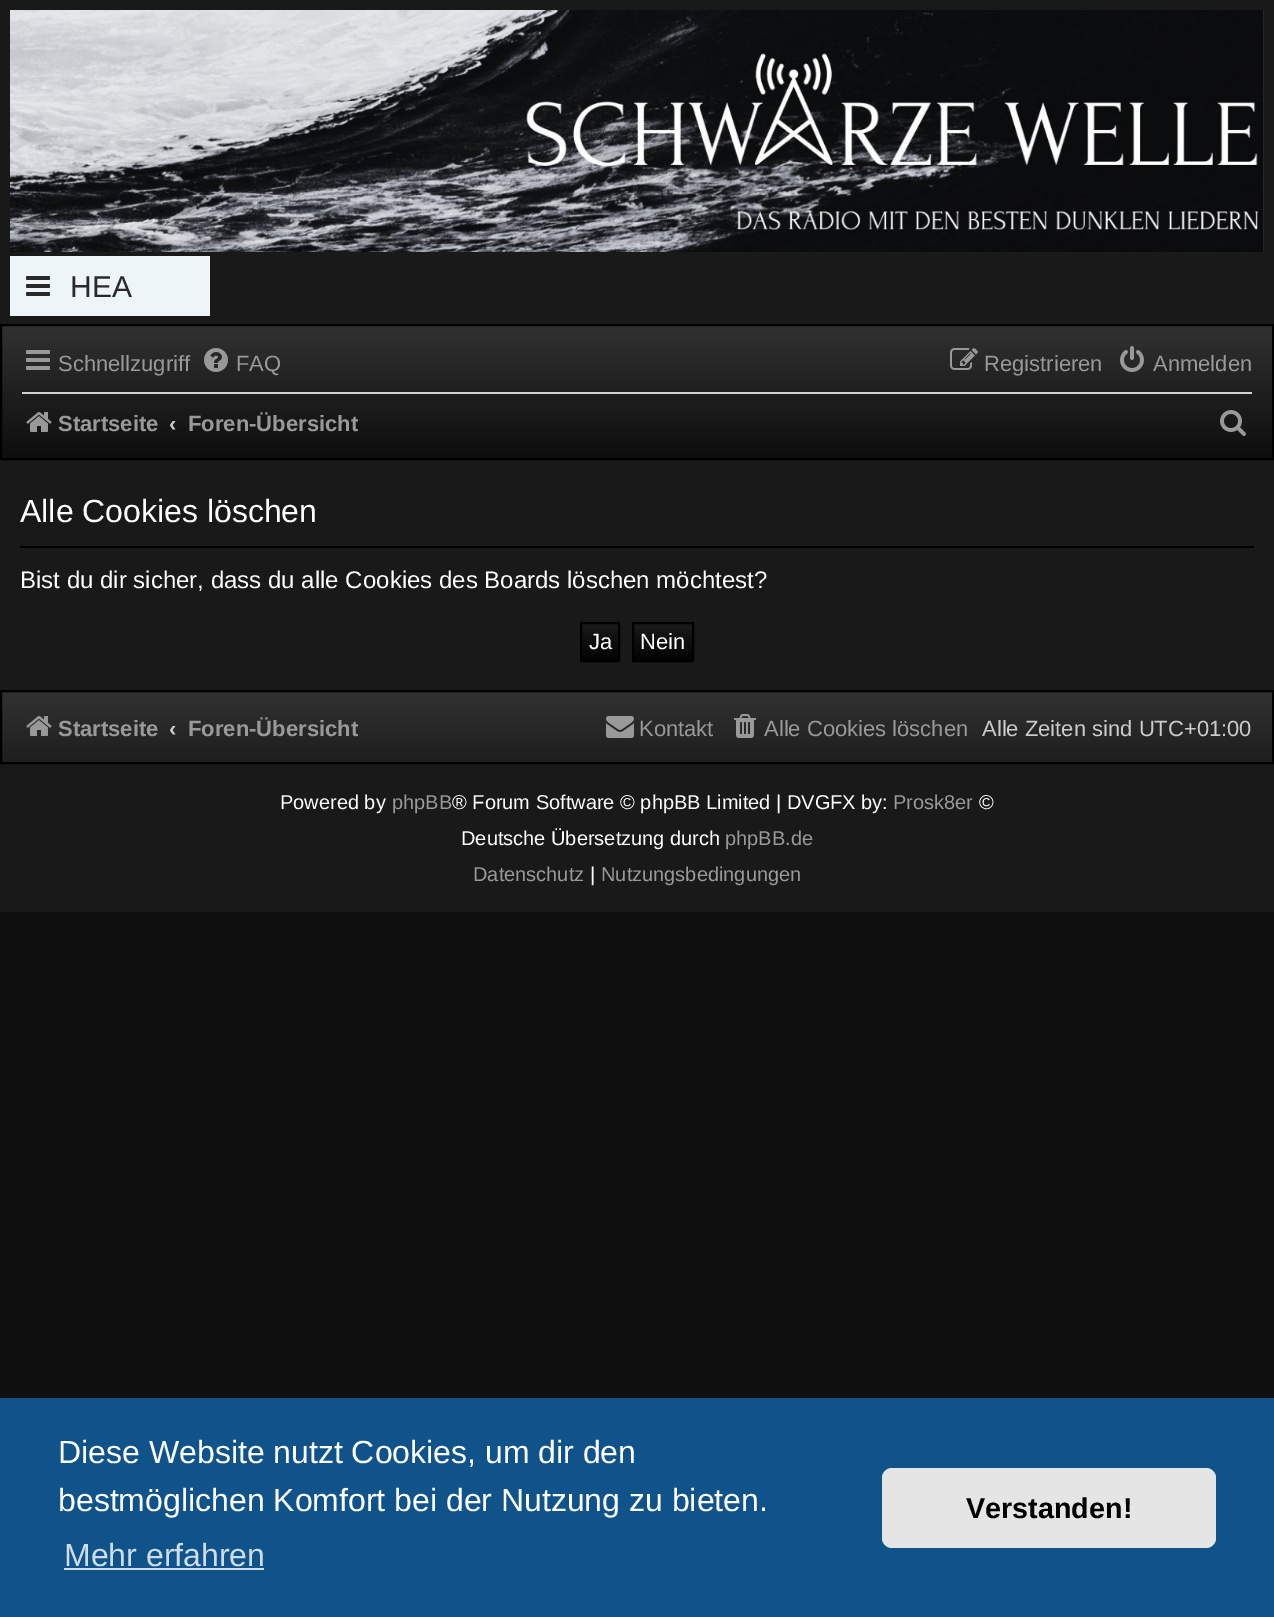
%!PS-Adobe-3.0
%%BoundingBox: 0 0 1274 1617
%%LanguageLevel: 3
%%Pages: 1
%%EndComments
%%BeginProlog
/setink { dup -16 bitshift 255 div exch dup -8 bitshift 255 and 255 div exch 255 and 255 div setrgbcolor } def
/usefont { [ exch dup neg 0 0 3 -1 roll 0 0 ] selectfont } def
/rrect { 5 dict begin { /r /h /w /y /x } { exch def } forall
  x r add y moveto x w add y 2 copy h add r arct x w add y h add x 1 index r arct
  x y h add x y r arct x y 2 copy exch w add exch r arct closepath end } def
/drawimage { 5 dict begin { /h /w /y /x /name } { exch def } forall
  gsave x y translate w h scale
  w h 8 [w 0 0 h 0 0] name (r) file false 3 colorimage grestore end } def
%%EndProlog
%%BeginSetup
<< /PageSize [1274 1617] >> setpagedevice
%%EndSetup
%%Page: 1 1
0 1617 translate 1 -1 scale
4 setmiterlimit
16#0F0F0F setink
0 0 1274 1617 rectfill
16#191919 setink
0 0 1274 912 rectfill
(img1.raw) 10 10 1254 242 drawimage
16#EEF5F9 setink
10 256 200 60 rectfill
(img2.raw) 26 276 24 20 drawimage
/LiberationSans-Regular 30 usefont
16#292929 setink
70 297 moveto (HEA) show
gsave 2 326 moveto 1272 326 lineto 1272 458 lineto 2 458 lineto closepath clip newpath
<< /ShadingType 2 /ColorSpace /DeviceRGB /Coords [637 326 637 510] /Extend [true true] /Function << /FunctionType 3 /Domain [0 1] /Functions [<< /FunctionType 2 /Domain [0 1] /C0 [0.188 0.188 0.188] /C1 [0.188 0.188 0.188] /N 1 >> << /FunctionType 2 /Domain [0 1] /C0 [0.188 0.188 0.188] /C1 [0 0 0] /N 1 >>] /Bounds [0.02] /Encode [0 1 0 1] >> >> shfill grestore
16#000000 setink
2 setlinewidth
1 325 1272 134 rectstroke
(img3.raw) 26 350 24 20 drawimage
/LiberationSans-Regular 22 usefont
16#999999 setink
58 371 moveto (Schnellzugriff) show
(img4.raw) 204 348 24 24 drawimage
236 371 moveto (FAQ) show
(img5.raw) 950 348 28 22 drawimage
984 371 moveto (Registrieren) show
(img6.raw) 1120 346 24 26 drawimage
1153 371 moveto (Anmelden) show
16#D2D2D2 setink
22 392 1230 2 rectfill
(img7.raw) 26 412 26 20 drawimage
/LiberationSans-Bold 22 usefont
16#999999 setink
58 431 moveto (Startseite) show
16#CCCCCC setink
169 431 moveto (‹) show
16#999999 setink
188 431 moveto (Foren-Übersicht) show
(img8.raw) 1220 410 26 26 drawimage
16#000000 setink
20 546 1234 2 rectfill
/LiberationSans-Regular 32 usefont
16#FFFFFF setink
20 522 moveto (Alle Cookies löschen) show
/LiberationSans-Regular 24 usefont
20 588 moveto (Bist du dir sicher, dass du alle Cookies des Boards löschen möchtest?) show
gsave 582 629 moveto 618 629 lineto 618 660 lineto 582 660 lineto closepath clip newpath
<< /ShadingType 2 /ColorSpace /DeviceRGB /Coords [600 624 600 660] /Extend [true true] /Function << /FunctionType 2 /Domain [0 1] /C0 [0.102 0.102 0.102] /C1 [0.008 0.008 0.008] /N 1 >> >> shfill grestore
16#000000 setink
581 623 38 38 rectstroke
/LiberationSans-Regular 22 usefont
16#FFFFFF setink
589 649 moveto (Ja) show
gsave 634 629 moveto 692 629 lineto 692 660 lineto 634 660 lineto closepath clip newpath
<< /ShadingType 2 /ColorSpace /DeviceRGB /Coords [663 624 663 660] /Extend [true true] /Function << /FunctionType 2 /Domain [0 1] /C0 [0.102 0.102 0.102] /C1 [0.008 0.008 0.008] /N 1 >> >> shfill grestore
16#000000 setink
633 623 60 38 rectstroke
16#FFFFFF setink
640 649 moveto (Nein) show
gsave 2 692 moveto 1272 692 lineto 1272 762 lineto 2 762 lineto closepath clip newpath
<< /ShadingType 2 /ColorSpace /DeviceRGB /Coords [637 692 637 876] /Extend [true true] /Function << /FunctionType 3 /Domain [0 1] /Functions [<< /FunctionType 2 /Domain [0 1] /C0 [0.188 0.188 0.188] /C1 [0.188 0.188 0.188] /N 1 >> << /FunctionType 2 /Domain [0 1] /C0 [0.188 0.188 0.188] /C1 [0 0 0] /N 1 >>] /Bounds [0.02] /Encode [0 1 0 1] >> >> shfill grestore
16#000000 setink
1 691 1272 72 rectstroke
(img9.raw) 26 716 26 20 drawimage
/LiberationSans-Bold 22 usefont
16#999999 setink
58 736 moveto (Startseite) show
16#CCCCCC setink
169 736 moveto (‹) show
16#999999 setink
188 736 moveto (Foren-Übersicht) show
(img10.raw) 606 716 28 22 drawimage
/LiberationSans-Regular 22 usefont
639 736 moveto (Kontakt) show
(img11.raw) 734 714 22 24 drawimage
764 736 moveto (Alle Cookies löschen) show
16#CCCCCC setink
982 736 moveto (Alle Zeiten sind UTC+01:00) show
/LiberationSans-Regular 20 usefont
16#FFFFFF setink
280 809 moveto (Powered by) show
16#999999 setink
392 809 moveto (phpBB) show
16#FFFFFF setink
452 809 moveto (® Forum Software © phpBB Limited | DVGFX by:) show
16#999999 setink
893 809 moveto (Prosk8er) show
16#FFFFFF setink
979 809 moveto (©) show
461 845 moveto (Deutsche Übersetzung durch) show
16#999999 setink
725 845 moveto (phpBB.de) show
473 881 moveto (Datenschutz) show
16#FFFFFF setink
590 881 moveto (|) show
16#999999 setink
601 881 moveto (Nutzungsbedingungen) show
16#0F538A setink
0 1398 1274 219 rectfill
/LiberationSans-Regular 32 usefont
16#FFFFFF setink
58 1463 moveto (Diese Website nutzt Cookies, um dir den) show
58 1511 moveto (bestmöglichen Komfort bei der Nutzung zu bieten.) show
16#CFDDE8 setink
64 1566 moveto (Mehr erfahren) show
64 1568 200 2 rectfill
16#E5E5E5 setink
882 1468 334 80 10 rrect fill
/LiberationSans-Bold 28.75 usefont
16#000000 setink
966 1518 moveto (Verstanden!) show
showpage
%%EOF
